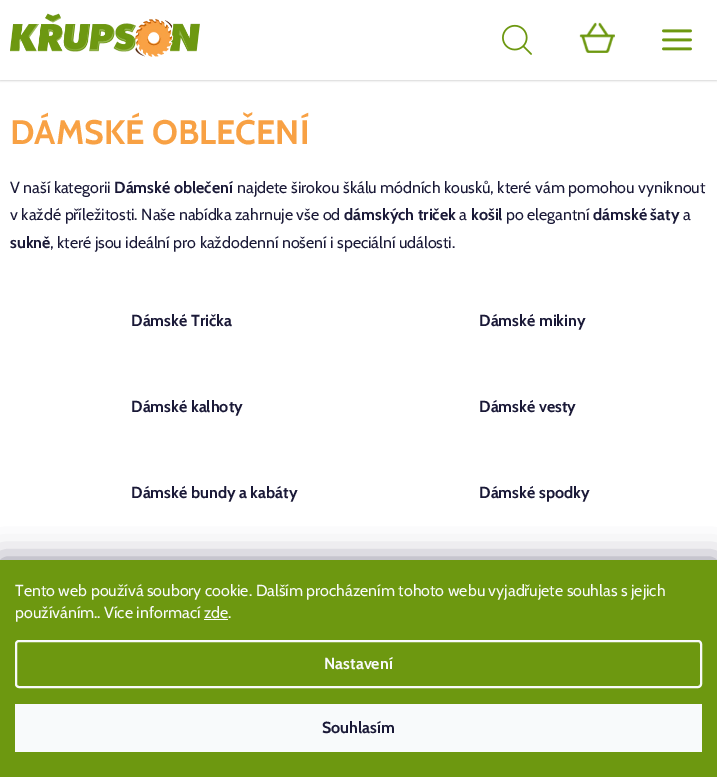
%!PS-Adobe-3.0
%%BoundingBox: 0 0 717 777
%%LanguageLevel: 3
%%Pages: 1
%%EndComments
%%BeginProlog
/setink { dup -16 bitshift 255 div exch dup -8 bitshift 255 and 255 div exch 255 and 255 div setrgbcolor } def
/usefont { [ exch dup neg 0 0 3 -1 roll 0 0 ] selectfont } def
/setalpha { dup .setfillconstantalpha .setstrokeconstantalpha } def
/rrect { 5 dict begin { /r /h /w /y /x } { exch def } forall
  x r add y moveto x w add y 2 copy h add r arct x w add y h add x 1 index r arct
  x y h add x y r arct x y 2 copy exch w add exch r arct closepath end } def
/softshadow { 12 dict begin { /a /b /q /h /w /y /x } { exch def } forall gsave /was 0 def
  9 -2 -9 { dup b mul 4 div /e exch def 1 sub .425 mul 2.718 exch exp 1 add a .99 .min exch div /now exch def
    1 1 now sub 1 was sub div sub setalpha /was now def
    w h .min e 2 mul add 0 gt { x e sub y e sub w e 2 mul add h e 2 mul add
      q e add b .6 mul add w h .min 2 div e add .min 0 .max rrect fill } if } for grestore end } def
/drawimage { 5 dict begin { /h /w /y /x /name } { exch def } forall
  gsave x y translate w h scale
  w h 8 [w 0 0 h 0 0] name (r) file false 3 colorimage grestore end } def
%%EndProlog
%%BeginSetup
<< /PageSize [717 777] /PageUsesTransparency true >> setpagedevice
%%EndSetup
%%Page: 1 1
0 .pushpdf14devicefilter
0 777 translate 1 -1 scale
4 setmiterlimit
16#FFFFFF setink
0 0 717 777 rectfill
16#000000 setink
0 1 717 80 0 1 0.16 softshadow
16#FFFFFF setink
0 0 717 80 rectfill
(img1.raw) 10 13 190 44 drawimage
(img2.raw) 502 24 30 31 drawimage
(img3.raw) 579 22 36 31 drawimage
(img4.raw) 662 29 30 22 drawimage
/Cabin-Bold 34 usefont
16#F8A144 setink
10 144 moveto (DÁMSKÉ OBLEČENÍ) show
/Cabin-Regular 16 usefont
16#1A1937 setink
10 193 moveto (V naší kategorii) show
/Cabin-Bold 16 usefont
114 193 moveto (Dámské oblečení) show
/Cabin-Regular 16 usefont
237 193 moveto (najdete širokou škálu módních kousků, které vám pomohou vyniknout) show
10 220 moveto (v každé příležitosti. Naše nabídka zahrnuje vše od) show
/Cabin-Bold 16 usefont
344 220 moveto (dámských triček) show
/Cabin-Regular 16 usefont
459 220 moveto (a) show
/Cabin-Bold 16 usefont
471 220 moveto (košil) show
/Cabin-Regular 16 usefont
506 220 moveto (po elegantní) show
/Cabin-Bold 16 usefont
593 220 moveto (dámské šaty) show
/Cabin-Regular 16 usefont
683 220 moveto (a) show
/Cabin-Bold 16 usefont
10 248 moveto (sukně) show
/Cabin-Regular 16 usefont
50 248 moveto (, které jsou ideální pro každodenní nošení i speciální události.) show
/Cabin-Bold 16 usefont
[
    [(Dámské Trička) 131 326]
    [(Dámské mikiny) 479 326]
    [(Dámské kalhoty) 131 412]
    [(Dámské vesty) 479 412]
    [(Dámské bundy a kabáty) 131 498]
    [(Dámské spodky) 479 498]
] { aload pop moveto show } forall
16#1B1939 setink
0 560 717 217 0 15 0.5 softshadow
16#6D9810 setink
0 560 717 217 rectfill
/Cabin-Regular 16 usefont
16#F8FAFB setink
15 596 moveto (Tento web používá soubory cookie. Dalším procházením tohoto webu vyjadřujete souhlas s jejich) show
15 618 moveto (používáním.. Více informací zde.) show
204 619 24 1 rectfill
2 setlinewidth
16 641 685 46 3 rrect stroke
/Cabin-Bold 16 usefont
324 669 moveto (Nastavení) show
15 704 687 48 rectfill
16#1A1937 setink
322 733 moveto (Souhlasím) show
.poppdf14devicefilter showpage
%%EOF
